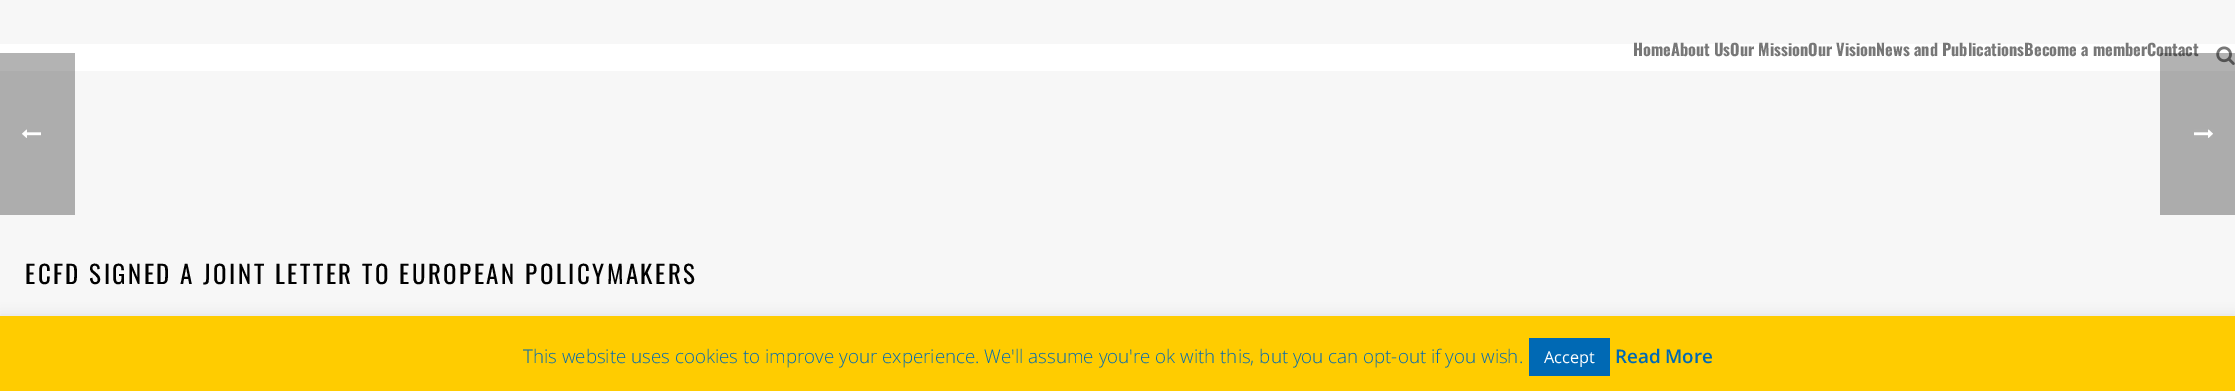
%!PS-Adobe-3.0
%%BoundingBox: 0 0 2235 391
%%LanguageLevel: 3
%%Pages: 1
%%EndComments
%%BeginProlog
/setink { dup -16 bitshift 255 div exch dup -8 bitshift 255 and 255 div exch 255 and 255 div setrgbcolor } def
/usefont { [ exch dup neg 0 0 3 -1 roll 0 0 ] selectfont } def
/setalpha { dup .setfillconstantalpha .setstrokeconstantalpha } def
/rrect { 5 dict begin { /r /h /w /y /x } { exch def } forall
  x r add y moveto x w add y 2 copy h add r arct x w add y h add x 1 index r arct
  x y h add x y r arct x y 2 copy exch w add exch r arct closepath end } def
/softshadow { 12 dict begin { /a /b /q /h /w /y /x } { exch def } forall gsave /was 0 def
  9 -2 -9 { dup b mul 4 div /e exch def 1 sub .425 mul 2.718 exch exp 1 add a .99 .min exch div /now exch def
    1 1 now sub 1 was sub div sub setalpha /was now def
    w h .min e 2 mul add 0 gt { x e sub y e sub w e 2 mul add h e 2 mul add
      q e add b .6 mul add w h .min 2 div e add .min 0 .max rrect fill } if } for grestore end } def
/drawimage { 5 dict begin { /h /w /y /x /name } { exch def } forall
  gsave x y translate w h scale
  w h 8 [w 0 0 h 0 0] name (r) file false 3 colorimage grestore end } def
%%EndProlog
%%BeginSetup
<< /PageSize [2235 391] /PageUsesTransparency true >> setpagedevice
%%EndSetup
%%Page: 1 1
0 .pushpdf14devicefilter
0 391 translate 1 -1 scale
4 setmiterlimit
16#F7F7F7 setink
0 0 2235 391 rectfill
16#ADADAD setink
0 71 75 144 rectfill
16#FFFFFF setink
0 44 2235 27 rectfill
/Oswald-Bold 16.25 usefont
16#777777 setink
1633 56 moveto (HomeAbout UsOur MissionOur VisionNews and PublicationsBecome a memberContact) show
(img1.raw) 2216 46 19 19 drawimage
16#B3B3B3 setink
0 53 75 18 rectfill
/Oswald-Regular 25 usefont
16#000000 setink
25 284 moveto 2.5 0 (ECFD SIGNED A JOINT LETTER TO EUROPEAN POLICYMAKERS) ashow
(img2.raw) 22 129 19 9 drawimage
0.3 setalpha
2160 53 75 162 rectfill
1 setalpha
(img3.raw) 2194 129 19 9 drawimage
16#ACABAB setink
0 315 2235 75 0 6 0.3 softshadow
16#FFCC00 setink
0 316 2235 75 rectfill
/OpenSans-Light 18.75 usefont
16#0069B4 setink
523 363 moveto (This website uses cookies to improve your experience. We'll assume you're ok with this, but you can opt-out if you wish.) show
1529 338 81 38 rectfill
/OpenSans-Regular 16.25 usefont
16#FFFFFF setink
1544 363 moveto (Accept) show
/OpenSans-SemiBold 18.75 usefont
16#0069B4 setink
1615 363 moveto (Read More) show
.poppdf14devicefilter showpage
%%EOF
